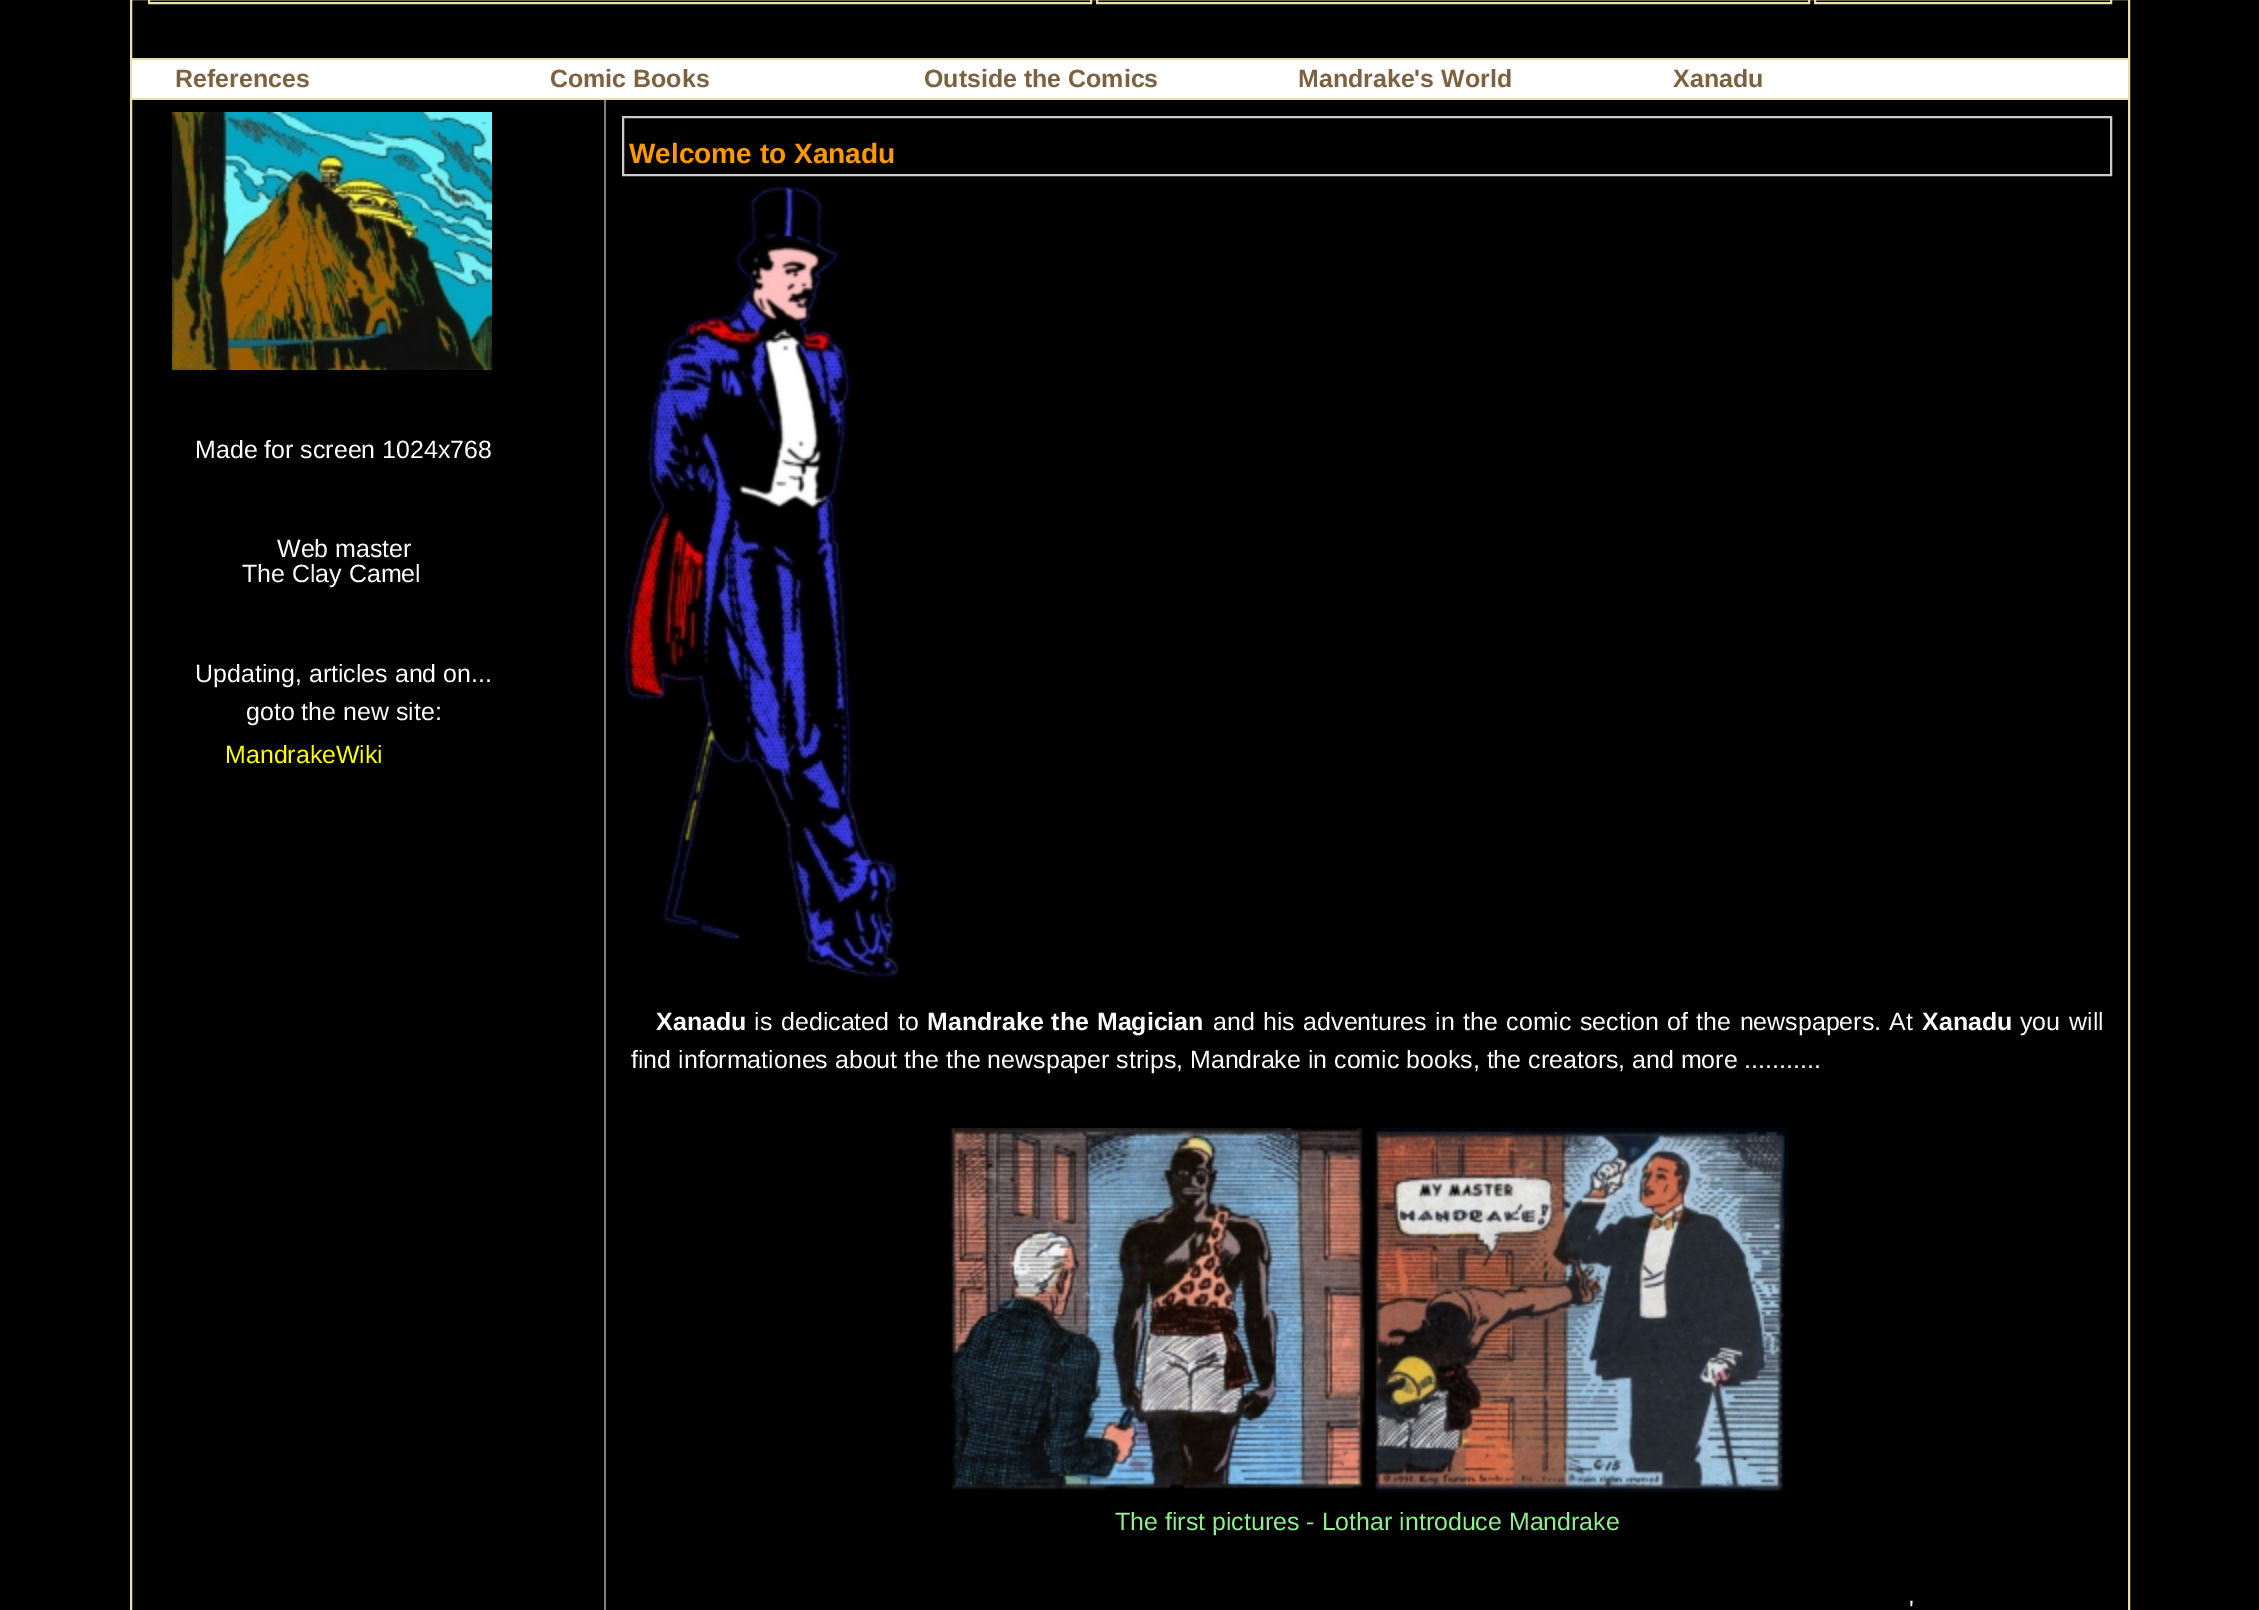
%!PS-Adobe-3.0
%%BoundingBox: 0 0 2259 1610
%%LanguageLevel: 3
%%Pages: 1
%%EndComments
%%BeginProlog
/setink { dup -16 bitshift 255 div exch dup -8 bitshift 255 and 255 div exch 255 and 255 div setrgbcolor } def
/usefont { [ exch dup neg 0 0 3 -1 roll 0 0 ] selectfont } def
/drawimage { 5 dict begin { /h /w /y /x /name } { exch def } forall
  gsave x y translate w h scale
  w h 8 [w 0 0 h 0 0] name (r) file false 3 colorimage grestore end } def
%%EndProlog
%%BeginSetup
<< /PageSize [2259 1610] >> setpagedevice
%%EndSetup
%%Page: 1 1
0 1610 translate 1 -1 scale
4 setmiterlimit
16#000000 setink
0 0 2259 1610 rectfill
16#EEDDAA setink
2 setlinewidth
131 -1 1998 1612 rectstroke
149 -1 942 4 rectstroke
1097 -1 712 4 rectstroke
1815 -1 296 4 rectstroke
[
    [132 60 1996 38 16#FFFFFF]
    [132 58 1996 2 16#EEDDAA]
    [132 98 1996 2 16#EEDDAA]
] { aload pop setink rectfill } forall
/LiberationSans-Bold 24.95 usefont
16#7C6240 setink
[
    [(References) 175 87]
    [(Comic Books) 550 87]
    [(Outside the Comics) 924 87]
    [(Mandrake's World) 1298 87]
    [(Xanadu) 1673 87]
] { aload pop moveto show } forall
(img1.raw) 172 112 320 258 drawimage
/LiberationSans-Regular 24.95 usefont
16#FFFFFF setink
[
    [(Made for screen 1024x768) 195 458]
    [(Web master) 277 557]
    [(The Clay Camel) 242 582]
    [(Updating, articles and on...) 195 682]
    [(goto the new site:) 246 720]
] { aload pop moveto show } forall
16#FFFF00 setink
225 763 moveto (MandrakeWiki) show
16#808080 setink
604 100 2 1510 rectfill
16#CCCCCC setink
623 117 1488 58 rectstroke
/LiberationSans-Bold 28 usefont
16#FF9900 setink
629 163 moveto (Welcome to Xanadu) show
(img2.raw) 621 183 279 795 drawimage
/LiberationSans-Bold 24.95 usefont
16#FFFFFF setink
656 1030 moveto (Xanadu) show
/LiberationSans-Regular 24.95 usefont
754 1030 moveto 2 0 32 (is dedicated to) widthshow
/LiberationSans-Bold 24.95 usefont
927 1030 moveto 1 0 32 (Mandrake the Magician) widthshow
/LiberationSans-Regular 24.95 usefont
1213 1030 moveto 1.5 0 32 (and his adventures in the comic section of the newspapers.) widthshow
1889 1030 moveto (At) show
/LiberationSans-Bold 24.95 usefont
1922 1030 moveto (Xanadu) show
/LiberationSans-Regular 24.95 usefont
2020 1030 moveto 2 0 32 (you will) widthshow
631 1068 moveto (find informationes about the the newspaper strips, Mandrake in comic books, the creators, and more ...........) show
(img3.raw) 949 1128 839 364 drawimage
16#90EE90 setink
1115 1530 moveto (The first pictures - Lothar introduce Mandrake) show
16#FFFFFF setink
1909 1618 moveto 2 0 32 (') widthshow
showpage
%%EOF
